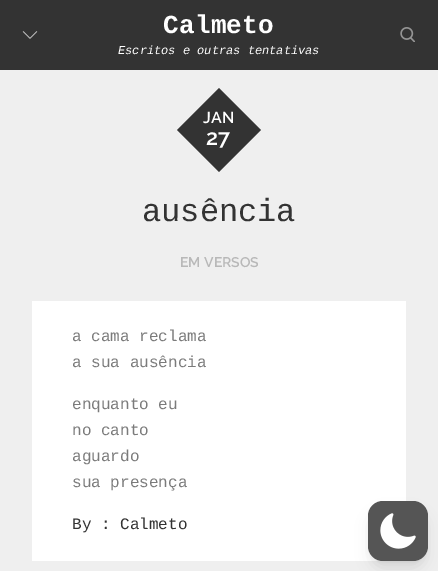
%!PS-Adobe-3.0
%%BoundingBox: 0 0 438 571
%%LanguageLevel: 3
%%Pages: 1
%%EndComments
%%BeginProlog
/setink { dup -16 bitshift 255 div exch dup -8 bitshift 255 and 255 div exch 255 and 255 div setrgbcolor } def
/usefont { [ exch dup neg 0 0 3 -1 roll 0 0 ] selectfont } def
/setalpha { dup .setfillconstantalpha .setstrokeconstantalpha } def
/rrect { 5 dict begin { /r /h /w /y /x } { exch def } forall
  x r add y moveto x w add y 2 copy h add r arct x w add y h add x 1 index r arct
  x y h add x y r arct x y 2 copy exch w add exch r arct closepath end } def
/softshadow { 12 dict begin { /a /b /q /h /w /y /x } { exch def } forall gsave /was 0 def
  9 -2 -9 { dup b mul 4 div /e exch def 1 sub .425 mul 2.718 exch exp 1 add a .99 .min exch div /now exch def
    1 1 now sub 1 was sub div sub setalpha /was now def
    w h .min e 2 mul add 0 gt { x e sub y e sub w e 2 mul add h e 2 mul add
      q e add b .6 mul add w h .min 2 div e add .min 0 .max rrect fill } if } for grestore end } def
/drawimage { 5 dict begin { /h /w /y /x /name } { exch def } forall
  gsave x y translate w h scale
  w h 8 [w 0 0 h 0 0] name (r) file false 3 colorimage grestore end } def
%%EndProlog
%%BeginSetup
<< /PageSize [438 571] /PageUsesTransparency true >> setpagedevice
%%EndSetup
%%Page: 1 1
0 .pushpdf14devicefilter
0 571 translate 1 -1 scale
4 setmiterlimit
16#EFEFEF setink
0 0 438 571 rectfill
16#333333 setink
0 0 438 70 rectfill
(img1.raw) 22 31 16 8 drawimage
/LiberationMono-Bold 26 usefont
16#FFFFFF setink
163 33 moveto 0.25 0 (Calmeto) ashow
/LiberationMono-Italic 12 usefont
118 54 moveto (Escritos e outras tentativas) show
(img2.raw) 400 27 15 15 drawimage
16#333333 setink
177 130 moveto 219 88 lineto 261 130 lineto 219 172 lineto closepath fill
/Raleway-SemiBold 16 usefont
16#FFFFFF setink
203 123 moveto (JAN) show
/Raleway-SemiBold 22 usefont
206 145 moveto (27) show
/LiberationMono-Regular 32 usefont
16#333333 setink
142 221 moveto (ausência) show
/Raleway-SemiBold 14 usefont
16#B8B8B8 setink
180 267 moveto (EM VERSOS) show
16#FFFFFF setink
32 301 374 260 rectfill
/LiberationMono-Regular 16 usefont
16#7B7B7B setink
[
    [(a cama reclama) 72 341]
    [(a sua ausência) 72 367]
    [(enquanto eu) 72 409]
    [(no canto) 72 435]
    [(aguardo) 72 461]
    [(sua presença) 72 487]
] { aload pop moveto show } forall
16#333333 setink
72 529 moveto (By : Calmeto) show
16#000000 setink
372 509 52 52 11 3 0.1 softshadow
371 514 54 54 12 7.5 0.1 softshadow
16#555555 setink
368 501 60 60 15 rrect fill
(img3.raw) 380 513 36 36 drawimage
.poppdf14devicefilter showpage
%%EOF
